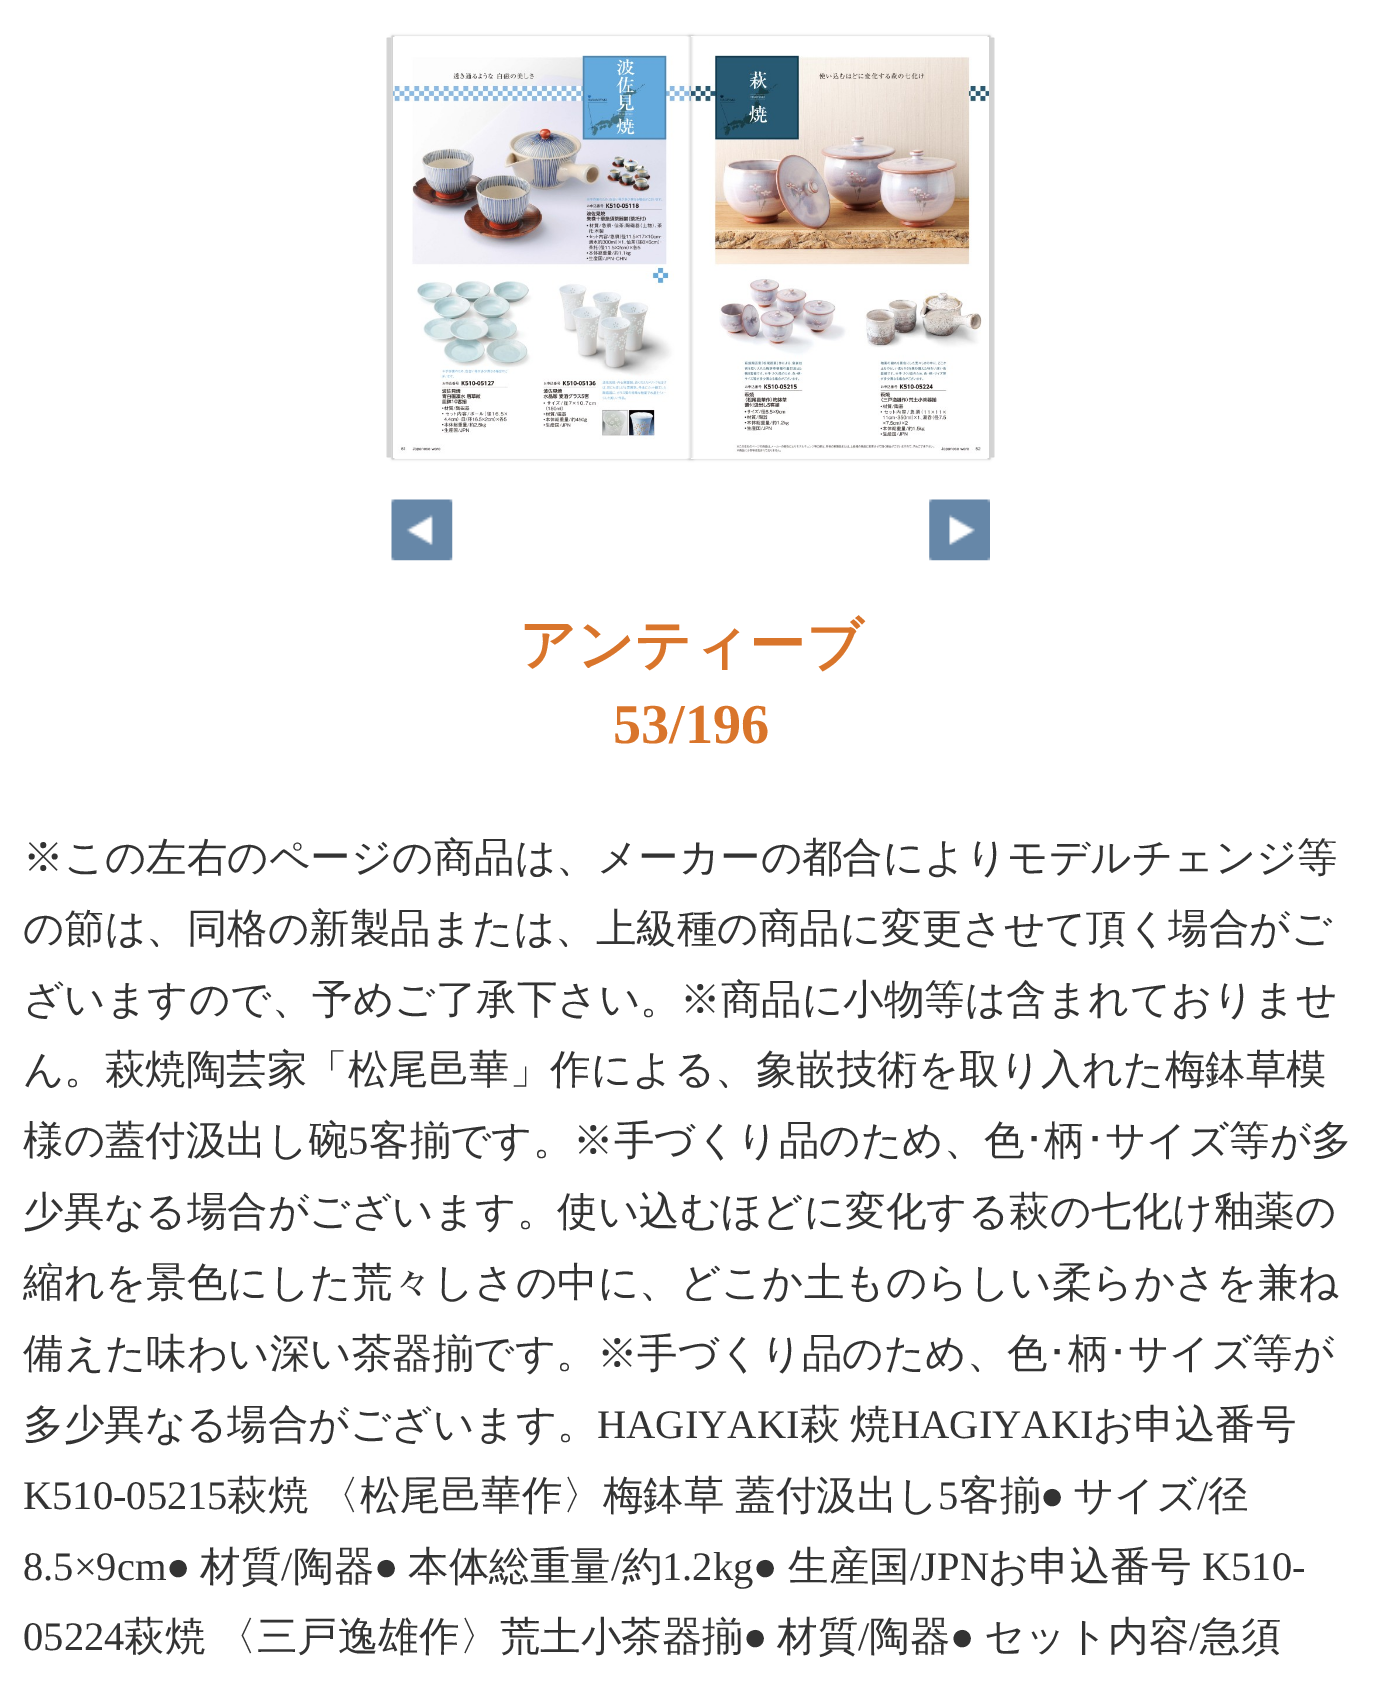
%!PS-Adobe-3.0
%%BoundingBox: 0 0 1380 1694
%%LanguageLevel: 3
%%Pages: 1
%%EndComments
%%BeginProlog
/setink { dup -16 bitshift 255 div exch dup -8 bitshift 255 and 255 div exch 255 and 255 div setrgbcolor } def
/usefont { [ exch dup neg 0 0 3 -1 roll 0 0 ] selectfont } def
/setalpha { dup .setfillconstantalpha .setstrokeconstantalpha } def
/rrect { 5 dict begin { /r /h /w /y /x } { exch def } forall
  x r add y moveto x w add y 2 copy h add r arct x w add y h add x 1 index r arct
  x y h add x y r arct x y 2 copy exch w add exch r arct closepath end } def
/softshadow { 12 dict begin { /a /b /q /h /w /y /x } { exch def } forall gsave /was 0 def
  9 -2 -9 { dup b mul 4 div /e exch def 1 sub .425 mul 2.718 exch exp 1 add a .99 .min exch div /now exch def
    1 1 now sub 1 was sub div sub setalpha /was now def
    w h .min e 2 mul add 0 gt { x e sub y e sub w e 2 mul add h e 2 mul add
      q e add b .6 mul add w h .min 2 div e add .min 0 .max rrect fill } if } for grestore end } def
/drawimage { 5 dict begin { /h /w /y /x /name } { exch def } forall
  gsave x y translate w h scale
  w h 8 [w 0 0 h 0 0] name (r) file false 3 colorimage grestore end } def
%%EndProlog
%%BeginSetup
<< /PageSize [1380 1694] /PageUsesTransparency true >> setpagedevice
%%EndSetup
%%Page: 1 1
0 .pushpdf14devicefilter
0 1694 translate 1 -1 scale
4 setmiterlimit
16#FFFFFF setink
0 0 1380 1694 rectfill
16#000000 setink
392 36 301 423 0 1.5 0.2 softshadow
16#FDFDFD setink
394 36 297 423 rectfill
16#D2D2D2 setink
0.7 setlinewidth
392.35 36.35 1.3 422.3 rectstroke
387.35 38.35 1.3 418.3 rectstroke
392.35 36.35 1.3 422.3 rectstroke
387.35 38.35 1.3 418.3 rectstroke
389.35 38.35 1.3 418.3 rectstroke
389.35 38.35 1.3 418.3 rectstroke
16#000000 setink
689 36 301 423 0 1.5 0.2 softshadow
16#FDFDFD setink
691 36 297 423 rectfill
16#D2D2D2 setink
988.35 36.35 1.3 422.3 rectstroke
988.35 36.35 1.3 422.3 rectstroke
990.35 38.35 1.3 418.3 rectstroke
990.35 38.35 1.3 418.3 rectstroke
992.35 38.35 1.3 418.3 rectstroke
992.35 38.35 1.3 418.3 rectstroke
(img1.raw) 393 37 298 421 drawimage
(img2.raw) 688 37 3 421 drawimage
(img4.raw) 691 37 298 421 drawimage
(img3.raw) 690 37 4 421 drawimage
(img5.raw) 391 499 62 62 drawimage
(img6.raw) 929 499 61 62 drawimage
/WenQuanYiZenHei-Bold 56.25 usefont
16#D9752B setink
519 664 moveto (アンティーブ) show
/LiberationSerif-Bold 56.25 usefont
613 743 moveto (53/196) show
/WenQuanYiZenHei-Medium 40.5 usefont
16#333333 setink
[
    [(※この左右のページの商品は、メーカーの都合によりモデルチェンジ等) 23 871]
    [(の節は、同格の新製品または、上級種の商品に変更させて頂く場合がご) 23 942]
    [(ざいますので、予めご了承下さい。※商品に小物等は含まれておりませ) 23 1013]
    [(ん。萩焼陶芸家「松尾邑華」作による、象嵌技術を取り入れた梅鉢草模) 23 1083]
    [(様の蓋付汲出し碗) 23 1154]
] { aload pop moveto show } forall
/LiberationSerif-Regular 40.5 usefont
348 1154 moveto (5) show
/WenQuanYiZenHei-Medium 40.5 usefont
369 1154 moveto (客揃です。※手づくり品のため、色) show
/IPAGothic-Regular 40.5 usefont
1024 1154 moveto (･) show
/WenQuanYiZenHei-Medium 40.5 usefont
1044 1154 moveto (柄) show
/IPAGothic-Regular 40.5 usefont
1085 1154 moveto (･) show
/WenQuanYiZenHei-Medium 40.5 usefont
[
    [(サイズ等が多) 1105 1154]
    [(少異なる場合がございます。使い込むほどに変化する萩の七化け釉薬の) 23 1225]
    [(縮れを景色にした荒々しさの中に、どこか土ものらしい柔らかさを兼ね) 23 1296]
    [(備えた味わい深い茶器揃です。※手づくり品のため、色) 23 1367]
] { aload pop moveto show } forall
/IPAGothic-Regular 40.5 usefont
1047 1367 moveto (･) show
/WenQuanYiZenHei-Medium 40.5 usefont
1068 1367 moveto (柄) show
/IPAGothic-Regular 40.5 usefont
1108 1367 moveto (･) show
/WenQuanYiZenHei-Medium 40.5 usefont
1128 1367 moveto (サイズ等が) show
23 1438 moveto (多少異なる場合がございます。) show
/LiberationSerif-Regular 40.5 usefont
597 1438 moveto (HAGIYAKI) show
/WenQuanYiZenHei-Medium 40.5 usefont
800 1438 moveto (萩) show
850 1438 moveto (焼) show
/LiberationSerif-Regular 40.5 usefont
891 1438 moveto (HAGIYAKI) show
/WenQuanYiZenHei-Medium 40.5 usefont
1093 1438 moveto (お申込番号) show
/LiberationSerif-Regular 40.5 usefont
23 1509 moveto (K510-05215) show
/WenQuanYiZenHei-Medium 40.5 usefont
227 1509 moveto -1 0 32 (萩焼 〈松尾邑華作〉梅鉢草 蓋付汲出し) widthshow
/LiberationSerif-Regular 40.5 usefont
938 1509 moveto (5) show
/WenQuanYiZenHei-Medium 40.5 usefont
959 1509 moveto (客揃) show
/LiberationSerif-Regular 40.5 usefont
1040 1509 moveto (●) show
/WenQuanYiZenHei-Medium 40.5 usefont
1073 1509 moveto (サイズ) show
/LiberationSerif-Regular 40.5 usefont
1197 1509 moveto (/) show
/WenQuanYiZenHei-Medium 40.5 usefont
1208 1509 moveto (径) show
/LiberationSerif-Regular 40.5 usefont
23 1580 moveto (8.5×9cm●) show
/WenQuanYiZenHei-Medium 40.5 usefont
200 1580 moveto (材質) show
/LiberationSerif-Regular 40.5 usefont
281 1580 moveto (/) show
/WenQuanYiZenHei-Medium 40.5 usefont
293 1580 moveto (陶器) show
/LiberationSerif-Regular 40.5 usefont
374 1580 moveto (●) show
/WenQuanYiZenHei-Medium 40.5 usefont
408 1580 moveto (本体総重量) show
/LiberationSerif-Regular 40.5 usefont
611 1580 moveto (/) show
/WenQuanYiZenHei-Medium 40.5 usefont
622 1580 moveto (約) show
/LiberationSerif-Regular 40.5 usefont
662 1580 moveto (1.2kg●) show
/WenQuanYiZenHei-Medium 40.5 usefont
788 1580 moveto (生産国) show
/LiberationSerif-Regular 40.5 usefont
910 1580 moveto (/JPN) show
/WenQuanYiZenHei-Medium 40.5 usefont
988 1580 moveto (お申込番号) show
/LiberationSerif-Regular 40.5 usefont
1202 1580 moveto (K510-) show
23 1650 moveto (05224) show
/WenQuanYiZenHei-Medium 40.5 usefont
124 1650 moveto -1 0 32 (萩焼 〈三戸逸雄作〉荒土小茶器揃) widthshow
/LiberationSerif-Regular 40.5 usefont
743 1650 moveto (●) show
/WenQuanYiZenHei-Medium 40.5 usefont
777 1650 moveto (材質) show
/LiberationSerif-Regular 40.5 usefont
858 1650 moveto (/) show
/WenQuanYiZenHei-Medium 40.5 usefont
869 1650 moveto (陶器) show
/LiberationSerif-Regular 40.5 usefont
950 1650 moveto (●) show
/WenQuanYiZenHei-Medium 40.5 usefont
984 1650 moveto (セット内容) show
/LiberationSerif-Regular 40.5 usefont
1189 1650 moveto (/) show
/WenQuanYiZenHei-Medium 40.5 usefont
1200 1650 moveto (急須) show
.poppdf14devicefilter showpage
%%EOF
